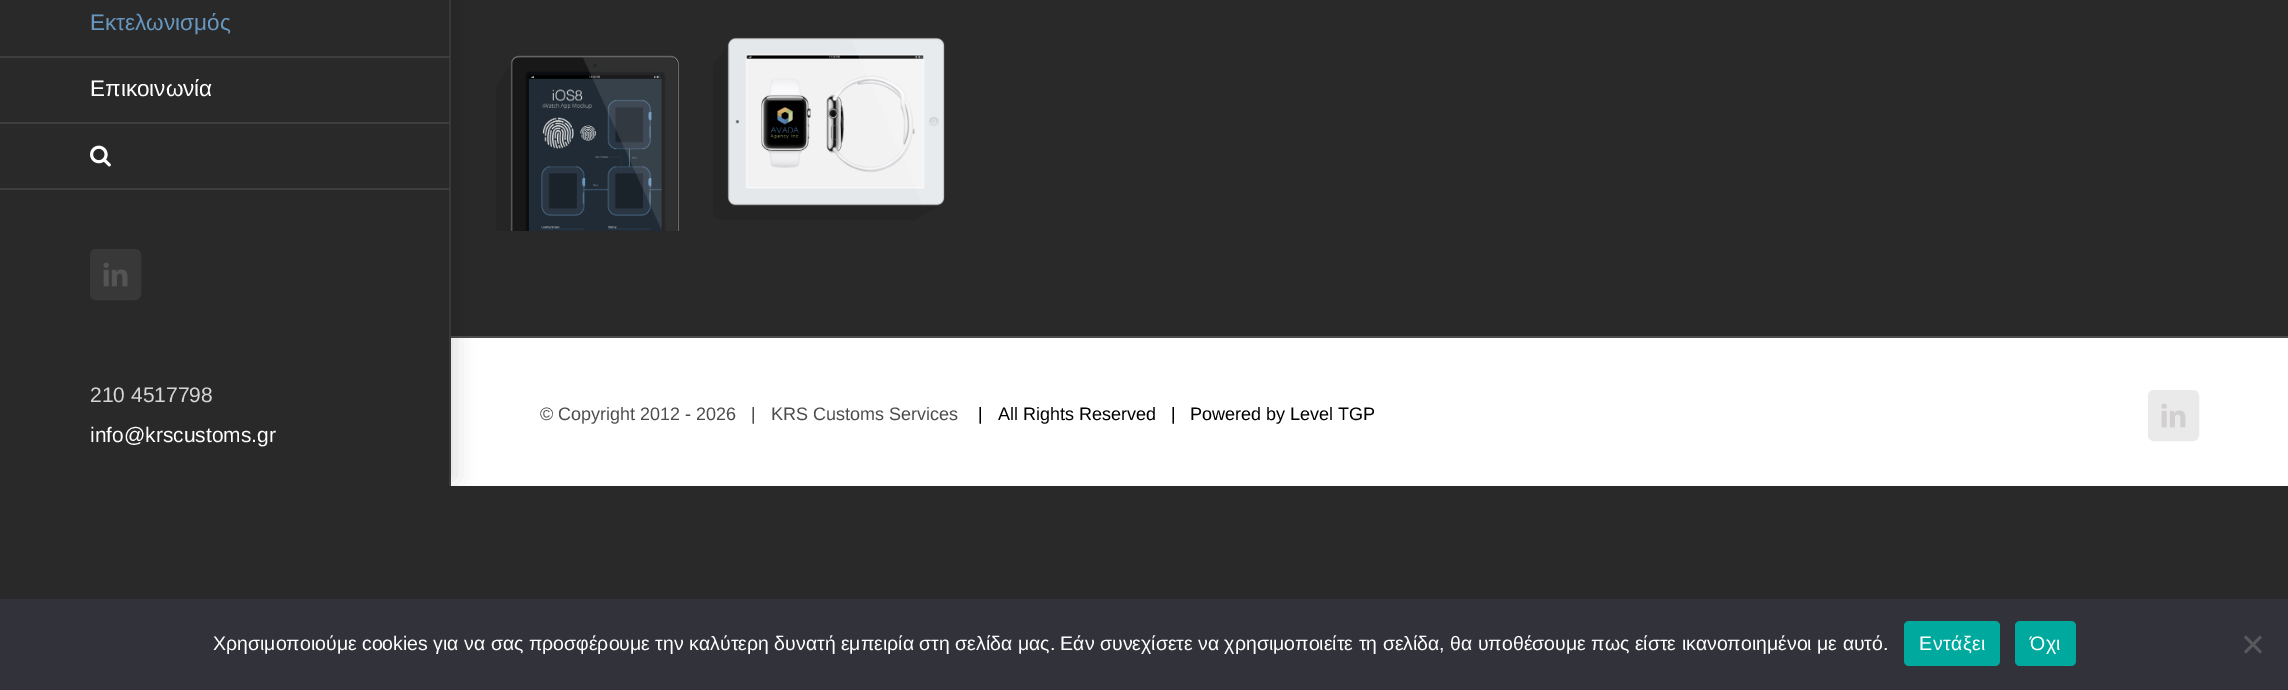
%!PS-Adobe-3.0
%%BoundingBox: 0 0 2288 690
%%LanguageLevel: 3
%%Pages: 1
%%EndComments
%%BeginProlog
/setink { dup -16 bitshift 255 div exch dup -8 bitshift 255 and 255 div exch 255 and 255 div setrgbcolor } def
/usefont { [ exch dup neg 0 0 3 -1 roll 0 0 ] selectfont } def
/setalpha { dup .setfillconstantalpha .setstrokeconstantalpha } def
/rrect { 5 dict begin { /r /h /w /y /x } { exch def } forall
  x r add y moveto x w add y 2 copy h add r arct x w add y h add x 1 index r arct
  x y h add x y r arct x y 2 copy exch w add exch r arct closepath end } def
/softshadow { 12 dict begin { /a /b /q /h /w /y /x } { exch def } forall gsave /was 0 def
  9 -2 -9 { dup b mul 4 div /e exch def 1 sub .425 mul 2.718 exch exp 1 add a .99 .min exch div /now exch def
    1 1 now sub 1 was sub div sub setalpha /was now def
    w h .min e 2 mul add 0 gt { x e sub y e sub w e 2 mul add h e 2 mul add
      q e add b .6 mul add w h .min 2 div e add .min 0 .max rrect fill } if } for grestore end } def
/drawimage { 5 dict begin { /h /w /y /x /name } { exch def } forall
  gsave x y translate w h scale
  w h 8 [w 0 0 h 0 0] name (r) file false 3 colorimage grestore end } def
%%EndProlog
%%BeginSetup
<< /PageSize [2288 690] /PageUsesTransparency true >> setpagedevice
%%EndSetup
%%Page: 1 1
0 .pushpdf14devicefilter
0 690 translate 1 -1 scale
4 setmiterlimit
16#29292A setink
0 0 2288 690 rectfill
[
    [450 336 1838 2 16#4B4C4D]
    [449 0 2 486 16#3E3E3E]
    [451 338 1837 148 16#FFFFFF]
] { aload pop setink rectfill } forall
gsave
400 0 moveto 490 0 lineto 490 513 lineto 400 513 lineto closepath 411 -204 moveto 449 -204 lineto 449 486 lineto 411 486 lineto closepath eoclip newpath
16#000000 setink
434 -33 22 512 0 11 0.14 softshadow
grestore
16#3E3E3E setink
0 56 450 2 rectfill
/LiberationSans-Regular 22.5 usefont
16#6796BF setink
90 30 moveto (Εκτελωνισμός) show
16#3E3E3E setink
0 122 450 2 rectfill
16#FFFFFF setink
90 96 moveto (Επικοινωνία) show
16#3E3E3E setink
0 188 450 2 rectfill
(img1.raw) 90 145 21 22 drawimage
16#383838 setink
91 250 49 49 5 rrect gsave fill grestore
2 setlinewidth
stroke
(img2.raw) 103 262 25 25 drawimage
/LiberationSans-Regular 21 usefont
16#D6D6D6 setink
90 402 moveto (210 4517798) show
16#FFFFFF setink
90 442 moveto (info@krscustoms.gr) show
(img3.raw) 496 37 449 194 drawimage
/LiberationSans-Regular 18 usefont
16#4C4C4C setink
540 420 moveto (© Copyright 2012 - 2026   |   KRS Customs Services) show
16#000000 setink
978 420 moveto (|   All Rights Reserved   |   Powered by Level TGP) show
16#EAEAEA setink
2149 391 49 49 5 rrect gsave fill grestore
stroke
(img4.raw) 2161 403 25 25 drawimage
16#32323A setink
0 599 2288 91 rectfill
/LiberationSans-Regular 19.5 usefont
16#FFFFFF setink
213 650 moveto (Χρησιμοποιούμε cookies για να σας προσφέρουμε την καλύτερη δυνατή εμπειρία στη σελίδα μας. Εάν συνεχίσετε να χρησιμοποιείτε τη σελίδα, θα υποθέσουμε πως είστε ικανοποιημένοι με αυτό.) show
16#00A99D setink
1904 621 96 45 5 rrect fill
16#FFFFFF setink
1919 650 moveto 0.5 0 (Εντάξει) ashow
16#00A99D setink
2015 621 61 45 5 rrect fill
16#FFFFFF setink
2030 650 moveto 0.5 0 (Όχι) ashow
16#59595D setink
2260 635.5 moveto 2262 637.5 lineto 2246 653.5 lineto 2244 651.5 lineto closepath fill
2244 637.5 moveto 2246 635.5 lineto 2262 651.5 lineto 2260 653.5 lineto closepath fill
.poppdf14devicefilter showpage
%%EOF
